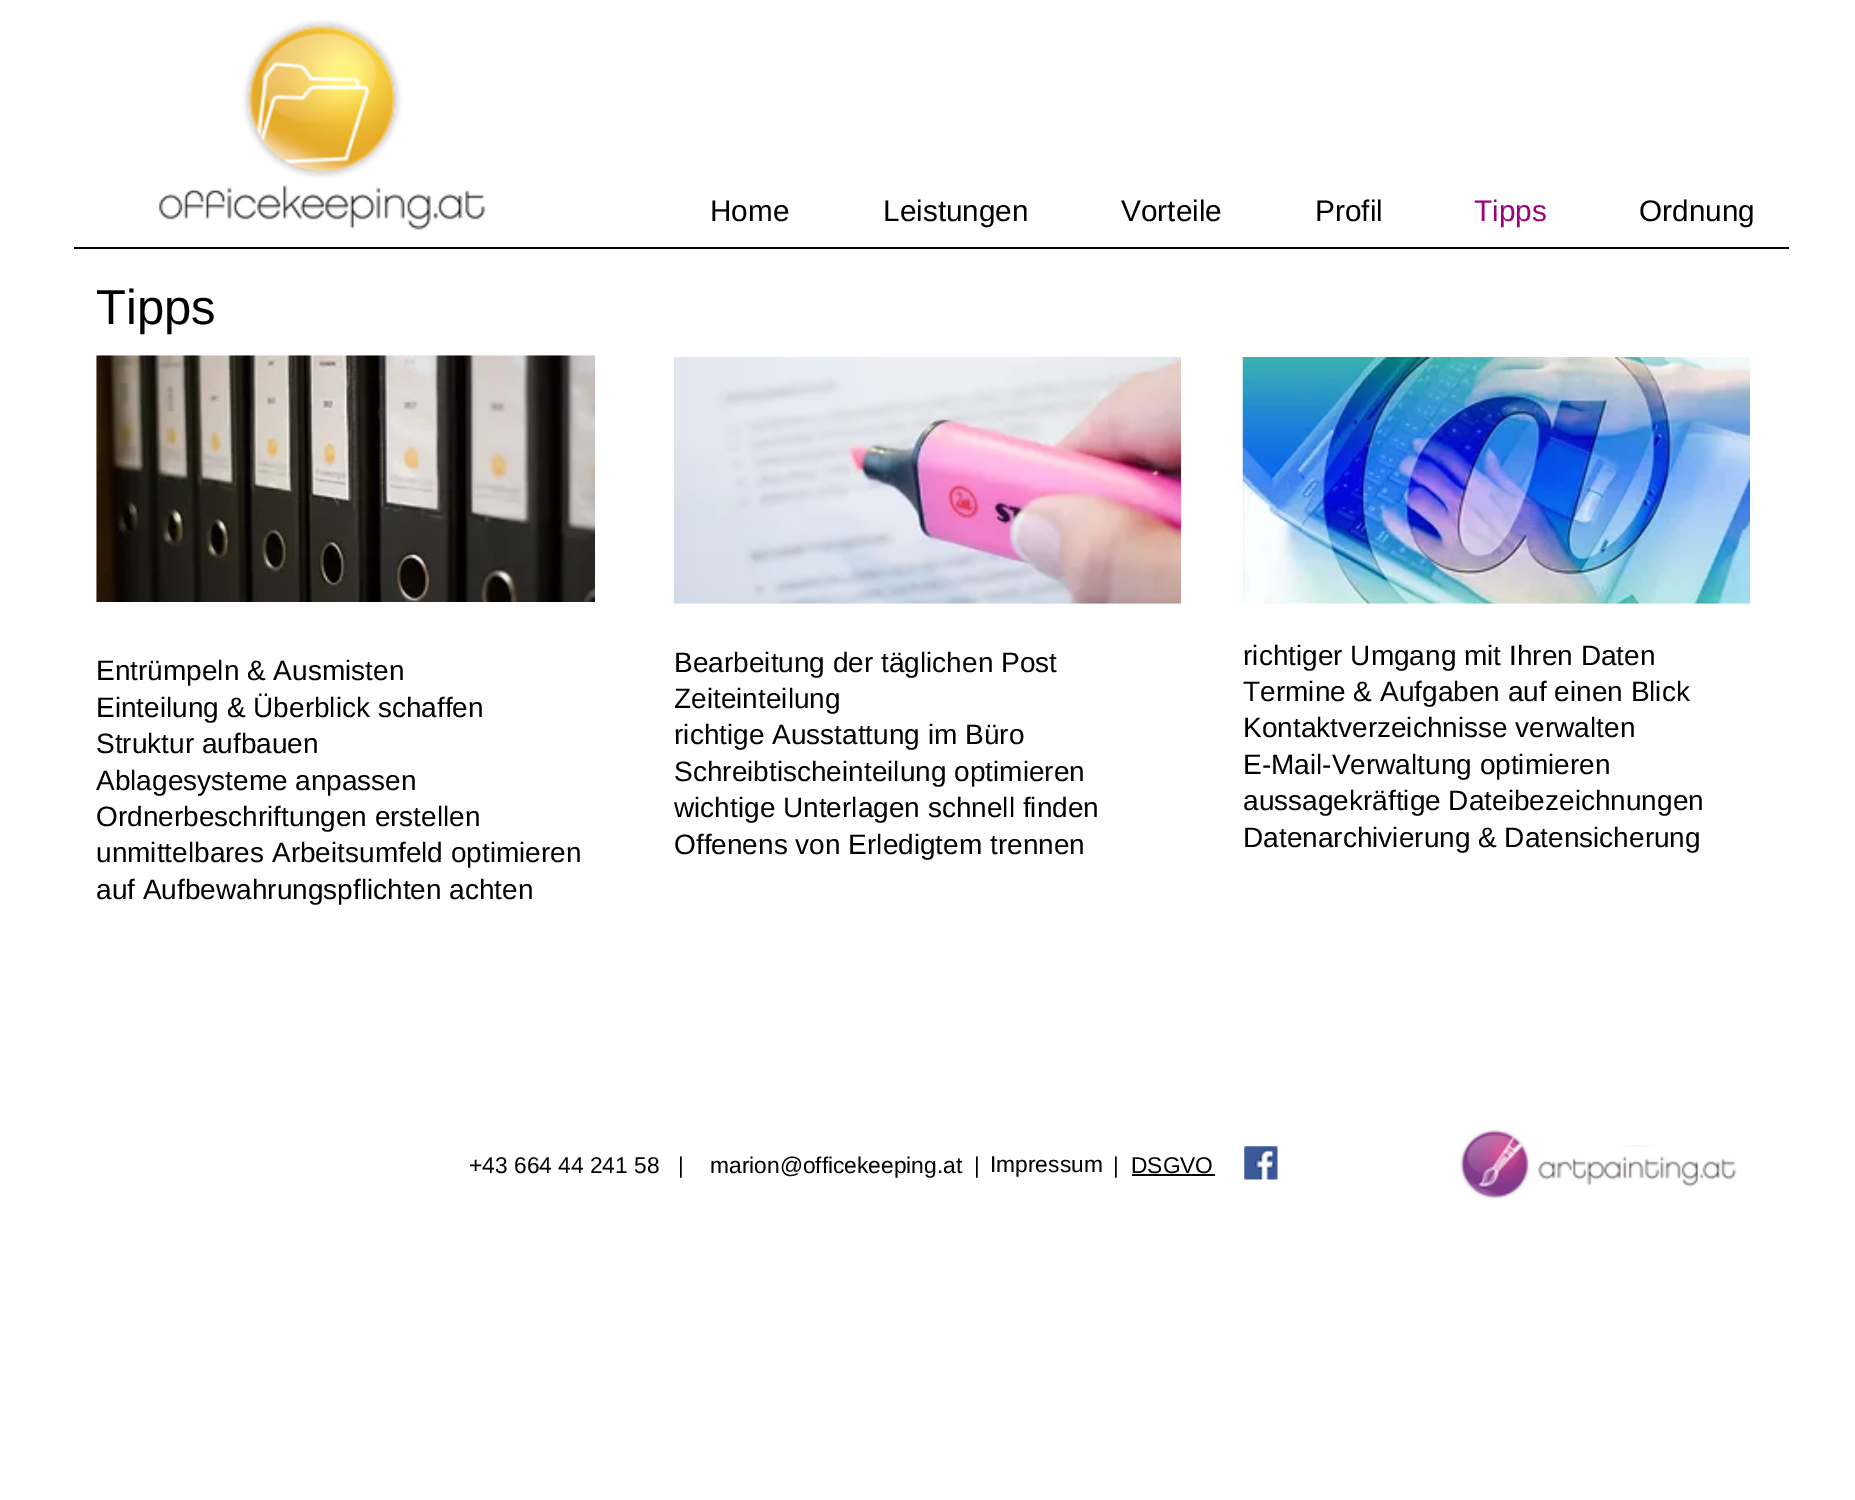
%!PS-Adobe-3.0
%%BoundingBox: 0 0 1855 1500
%%LanguageLevel: 3
%%Pages: 1
%%EndComments
%%BeginProlog
/setink { dup -16 bitshift 255 div exch dup -8 bitshift 255 and 255 div exch 255 and 255 div setrgbcolor } def
/usefont { [ exch dup neg 0 0 3 -1 roll 0 0 ] selectfont } def
/drawimage { 5 dict begin { /h /w /y /x /name } { exch def } forall
  gsave x y translate w h scale
  w h 8 [w 0 0 h 0 0] name (r) file false 3 colorimage grestore end } def
%%EndProlog
%%BeginSetup
<< /PageSize [1855 1500] >> setpagedevice
%%EndSetup
%%Page: 1 1
0 1500 translate 1 -1 scale
4 setmiterlimit
16#FFFFFF setink
0 0 1855 1500 rectfill
(img1.raw) 158 20 328 210 drawimage
/LiberationSans-Regular 29.75 usefont
16#000000 setink
[
    [(Home) 710 221]
    [(Leistungen) 883 221]
    [(Vorteile) 1121 221]
    [(Profil) 1315 221]
] { aload pop moveto show } forall
16#9C037B setink
1474 221 moveto (Tipps) show
16#000000 setink
1639 221 moveto (Ordnung) show
74 247 1715 2 rectfill
/LiberationSans-Regular 49 usefont
96 324 moveto (Tipps) show
(img2.raw) 96 355 499 247 drawimage
(img3.raw) 674 357 508 247 drawimage
(img4.raw) 1242 357 508 247 drawimage
/LiberationSans-Regular 28 usefont
[
    [(Entrümpeln & Ausmisten) 96 680]
    [(Einteilung & Überblick schaffen) 96 717]
    [(Struktur aufbauen) 96 753]
    [(Ablagesysteme anpassen) 96 790]
    [(Ordnerbeschriftungen erstellen) 96 826]
    [(unmittelbares Arbeitsumfeld optimieren) 96 862]
    [(auf Aufbewahrungspflichten achten) 96 899]
    [(Bearbeitung der täglichen Post) 674 672]
    [(Zeiteinteilung) 674 708]
    [(richtige Ausstattung im Büro) 674 744]
    [(Schreibtischeinteilung optimieren) 674 781]
    [(wichtige Unterlagen schnell finden) 674 817]
    [(Offenens von Erledigtem trennen) 674 854]
    [(richtiger Umgang mit Ihren Daten) 1243 665]
    [(Termine & Aufgaben auf einen Blick) 1243 701]
    [(Kontaktverzeichnisse verwalten) 1243 737]
    [(E-Mail-Verwaltung optimieren) 1243 774]
    [(aussagekräftige Dateibezeichnungen) 1243 810]
    [(Datenarchivierung & Datensicherung) 1243 847]
] { aload pop moveto show } forall
/LiberationSans-Regular 22.75 usefont
[
    [(+43 664 44 241 58   |) 469 1173]
    [(marion@officekeeping.at) 710 1173]
    [(|                     |) 974 1173]
    [(DSGVO) 1131 1173]
] { aload pop moveto show } forall
1132 1174 83 2 rectfill
(img5.raw) 1244 1146 34 34 drawimage
(img6.raw) 1460 1130 70 70 drawimage
(img7.raw) 1537 1145 200 42 drawimage
990 1172 moveto (Impressum) show
showpage
%%EOF
